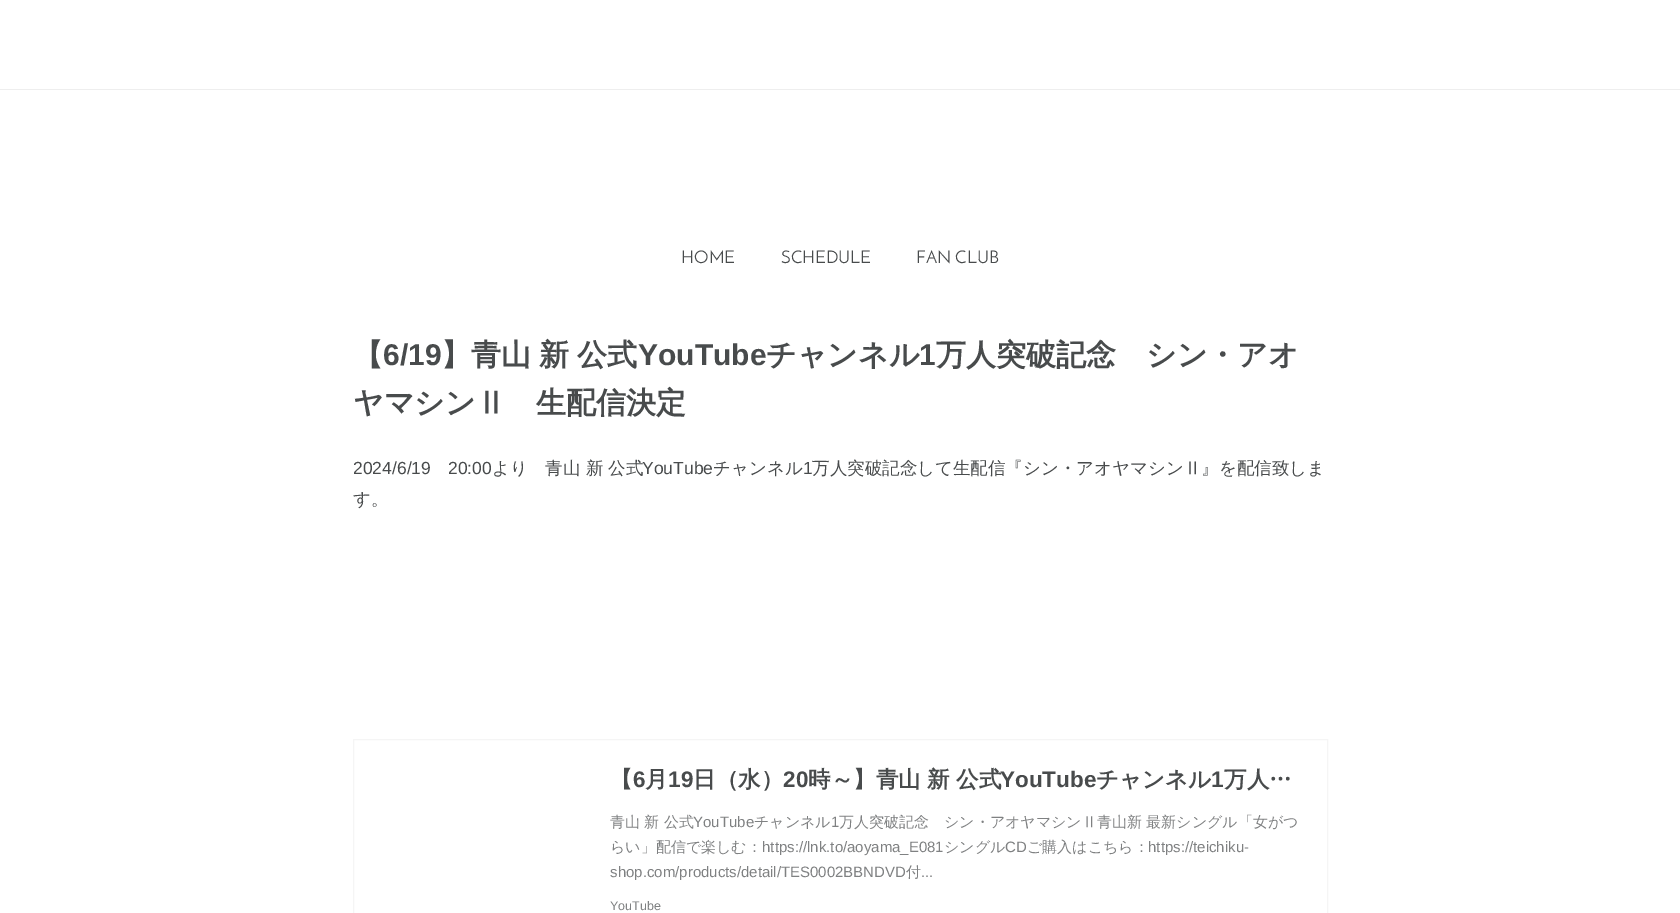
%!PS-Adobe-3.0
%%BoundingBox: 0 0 1680 913
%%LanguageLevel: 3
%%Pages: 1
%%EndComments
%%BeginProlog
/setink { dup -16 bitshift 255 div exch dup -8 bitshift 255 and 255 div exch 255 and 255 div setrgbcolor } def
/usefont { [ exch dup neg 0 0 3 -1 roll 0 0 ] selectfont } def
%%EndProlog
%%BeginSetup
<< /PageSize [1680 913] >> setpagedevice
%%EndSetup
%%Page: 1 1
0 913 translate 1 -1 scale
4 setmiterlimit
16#FFFFFF setink
0 0 1680 913 rectfill
16#EEEEEE setink
0 89 1680 1 rectfill
/JosefinSans-Regular 17.5 usefont
16#484B4C setink
[
    [(HOME) 681 263]
    [(SCHEDULE) 781 263]
    [(FAN CLUB) 916 263]
] { aload pop moveto show } forall
/WenQuanYiZenHei-Bold 30 usefont
353 365 moveto (【) show
/LiberationSans-Bold 30 usefont
383 365 moveto (6/19) show
/WenQuanYiZenHei-Bold 30 usefont
441 365 moveto -1 0 32 (】青山 新 公式) widthshow
/LiberationSans-Bold 30 usefont
638 365 moveto (YouTube) show
/WenQuanYiZenHei-Bold 30 usefont
766 365 moveto (チャンネル) show
/LiberationSans-Bold 30 usefont
919 365 moveto (1) show
/WenQuanYiZenHei-Bold 30 usefont
936 365 moveto (万人突破記念　シン・アオ) show
353 413 moveto (ヤマシンⅡ　生配信決定) show
/LiberationSans-Regular 17.5 usefont
353 474 moveto (2024/6/19) show
448 474 moveto (20:00) show
/WenQuanYiZenHei-Medium 17.5 usefont
492 474 moveto (より　青山 新 公式) show
/LiberationSans-Regular 17.5 usefont
642 474 moveto (YouTube) show
/WenQuanYiZenHei-Medium 17.5 usefont
713 474 moveto (チャンネル) show
/LiberationSans-Regular 17.5 usefont
803 474 moveto (1) show
/WenQuanYiZenHei-Medium 17.5 usefont
812 474 moveto (万人突破記念して生配信『シン・アオヤマシンⅡ』を配信致しま) show
353 505 moveto (す。) show
16#F5F5F5 setink
353.5 739.5 974 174 rectstroke
/WenQuanYiZenHei-Bold 22.5 usefont
16#484B4C setink
610 787 moveto (【) show
/LiberationSans-Bold 22.5 usefont
633 787 moveto (6) show
/WenQuanYiZenHei-Bold 22.5 usefont
645 787 moveto (月) show
/LiberationSans-Bold 22.5 usefont
668 787 moveto (19) show
/WenQuanYiZenHei-Bold 22.5 usefont
693 787 moveto (日（水）) show
/LiberationSans-Bold 22.5 usefont
783 787 moveto (20) show
/WenQuanYiZenHei-Bold 22.5 usefont
808 787 moveto (時～】青山 新 公式) show
/LiberationSans-Bold 22.5 usefont
1000 787 moveto (YouTube) show
/WenQuanYiZenHei-Bold 22.5 usefont
1096 787 moveto (チャンネル) show
/LiberationSans-Bold 22.5 usefont
1211 787 moveto (1) show
/WenQuanYiZenHei-Bold 22.5 usefont
1224 787 moveto (万人…) show
/WenQuanYiZenHei-Medium 15 usefont
16#7F8182 setink
610 827 moveto (青山 新 公式) show
/LiberationSans-Regular 15 usefont
693 827 moveto (YouTube) show
/WenQuanYiZenHei-Medium 15 usefont
754 827 moveto (チャンネル) show
/LiberationSans-Regular 15 usefont
831 827 moveto (1) show
/WenQuanYiZenHei-Medium 15 usefont
839 827 moveto (万人突破記念　シン・アオヤマシンⅡ青山新 最新シングル「女がつ) show
610 852 moveto (らい」配信で楽しむ：) show
/LiberationSans-Regular 15 usefont
762 852 moveto (https://lnk.to/aoyama_E081) show
/WenQuanYiZenHei-Medium 15 usefont
944 852 moveto (シングル) show
/LiberationSans-Regular 15 usefont
1005 852 moveto (CD) show
/WenQuanYiZenHei-Medium 15 usefont
1027 852 moveto (ご購入はこちら：) show
/LiberationSans-Regular 15 usefont
1148 852 moveto (https://teichiku-) show
610 877 moveto (shop.com/products/detail/TES0002BBNDVD) show
/WenQuanYiZenHei-Medium 15 usefont
906 877 moveto (付) show
/LiberationSans-Regular 15 usefont
921 877 moveto (...) show
/LiberationSans-Regular 12.5 usefont
610 910 moveto (YouTube) show
showpage
%%EOF
